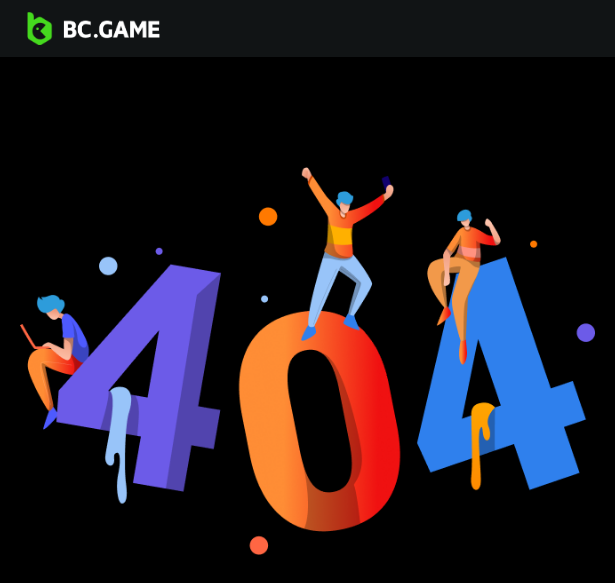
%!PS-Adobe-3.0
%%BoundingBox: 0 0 615 583
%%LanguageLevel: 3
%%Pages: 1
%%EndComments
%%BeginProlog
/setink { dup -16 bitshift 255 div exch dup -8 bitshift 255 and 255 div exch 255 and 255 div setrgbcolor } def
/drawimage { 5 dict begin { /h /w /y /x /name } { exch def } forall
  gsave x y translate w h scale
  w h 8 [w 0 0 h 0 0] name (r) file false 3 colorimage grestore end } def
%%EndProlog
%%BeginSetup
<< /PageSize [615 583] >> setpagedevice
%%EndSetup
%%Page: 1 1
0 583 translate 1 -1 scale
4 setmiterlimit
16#000000 setink
0 0 615 583 rectfill
16#111415 setink
0 0 615 57 rectfill
(img1.raw) 27 12 133 33 drawimage
(img2.raw) 20 167 575 388 drawimage
showpage
%%EOF
